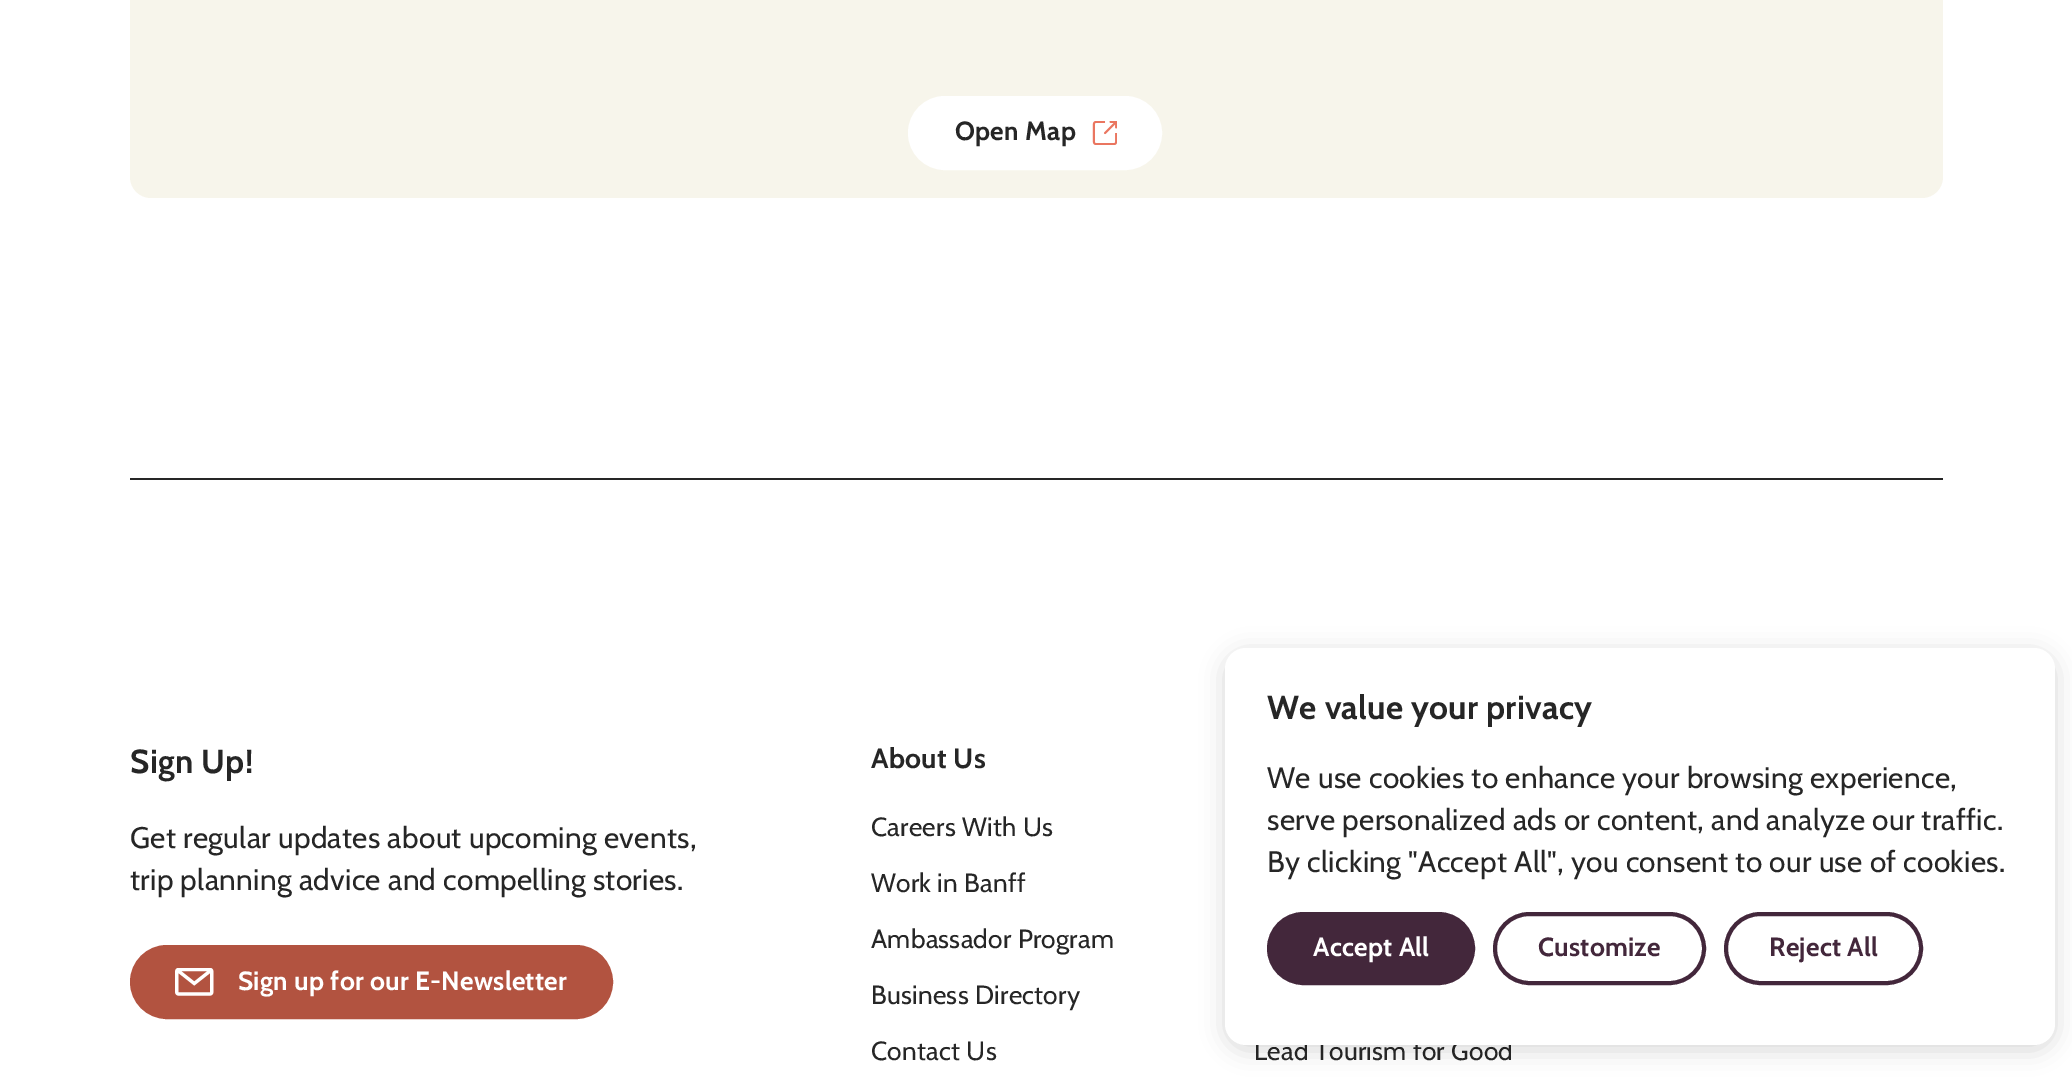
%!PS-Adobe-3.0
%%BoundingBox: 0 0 2072 1079
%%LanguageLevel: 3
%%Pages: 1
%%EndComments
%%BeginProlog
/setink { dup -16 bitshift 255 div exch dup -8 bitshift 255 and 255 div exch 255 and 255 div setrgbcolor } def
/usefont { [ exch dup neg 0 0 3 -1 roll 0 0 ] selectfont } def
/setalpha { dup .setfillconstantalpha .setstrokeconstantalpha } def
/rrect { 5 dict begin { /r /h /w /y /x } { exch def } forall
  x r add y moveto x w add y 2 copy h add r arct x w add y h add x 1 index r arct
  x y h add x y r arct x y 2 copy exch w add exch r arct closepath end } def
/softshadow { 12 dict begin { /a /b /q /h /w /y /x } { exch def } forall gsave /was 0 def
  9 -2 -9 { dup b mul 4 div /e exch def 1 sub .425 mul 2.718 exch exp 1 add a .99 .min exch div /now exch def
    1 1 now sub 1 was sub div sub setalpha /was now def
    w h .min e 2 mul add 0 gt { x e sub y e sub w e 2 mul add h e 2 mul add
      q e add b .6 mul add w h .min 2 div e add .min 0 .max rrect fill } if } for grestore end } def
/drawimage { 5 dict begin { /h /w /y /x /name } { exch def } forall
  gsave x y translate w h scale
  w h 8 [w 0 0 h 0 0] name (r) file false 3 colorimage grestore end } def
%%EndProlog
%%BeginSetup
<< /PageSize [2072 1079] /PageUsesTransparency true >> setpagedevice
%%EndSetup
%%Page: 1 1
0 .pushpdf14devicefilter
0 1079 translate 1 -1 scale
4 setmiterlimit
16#FFFFFF setink
0 0 2072 1079 rectfill
16#F7F5EB setink
130 -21 1813 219 21 rrect fill
16#FFFFFF setink
910 98 250 70 35 rrect gsave fill grestore
4 setlinewidth
stroke
/Cabin-Bold 26.25 usefont
16#262626 setink
955 140 moveto 0.25 0 (Open Map) ashow
(img1.raw) 1092 121 25 24 drawimage
130 478 1813 2 rectfill
/Cabin-Bold 33.25 usefont
130 773 moveto 0.3 0 (Sign Up!) ashow
/Cabin-Regular 29.75 usefont
130 848 moveto 0.3 0 (Get regular updates about upcoming events,) ashow
130 890 moveto 0.3 0 (trip planning advice and compelling stories.) ashow
16#B25340 setink
132 947 479 70 35 rrect gsave fill grestore
stroke
(img2.raw) 175 968 39 28 drawimage
/Cabin-Bold 26.25 usefont
16#FFFFFF setink
238 990 moveto 0.25 0 (Sign up for our E-Newsletter) ashow
/Cabin-Bold 28 usefont
16#262626 setink
871 768 moveto 0.25 0 (About Us) ashow
/Cabin-Regular 26.25 usefont
871 836 moveto 0.25 0 (Careers With Us) ashow
871 892 moveto 0.25 0 (Work in Banff) ashow
871 948 moveto 0.25 0 (Ambassador Program) ashow
871 1004 moveto 0.25 0 (Business Directory) ashow
871 1060 moveto 0.25 0 (Contact Us) ashow
1254 1060 moveto 0.25 0 (Lead Tourism for Good) ashow
16#000000 setink
1225 653 830 397 21 12 0.15 softshadow
16#FFFFFF setink
1225 648 830 397 21 rrect fill
/Cabin-Bold 33.25 usefont
16#262626 setink
1267 719 moveto 0.3 0 (We value your privacy) ashow
/Cabin-Regular 29.75 usefont
1267 788 moveto 0.3 0 (We use cookies to enhance your browsing experience,) ashow
1267 830 moveto 0.3 0 (serve personalized ads or content, and analyze our traffic.) ashow
1267 872 moveto 0.3 0 (By clicking "Accept All", you consent to our use of cookies.) ashow
16#43273B setink
1269 914 204 69 34.5 rrect gsave fill grestore
stroke
/Cabin-Bold 26.25 usefont
16#FFFFFF setink
1313 956 moveto 0.25 0 (Accept All) ashow
16#43273B setink
1495 914 209 69 34.5 rrect stroke
1538 956 moveto 0.25 0 (Customize) ashow
1726 914 195 69 34.5 rrect stroke
1769 956 moveto 0.25 0 (Reject All) ashow
.poppdf14devicefilter showpage
%%EOF
